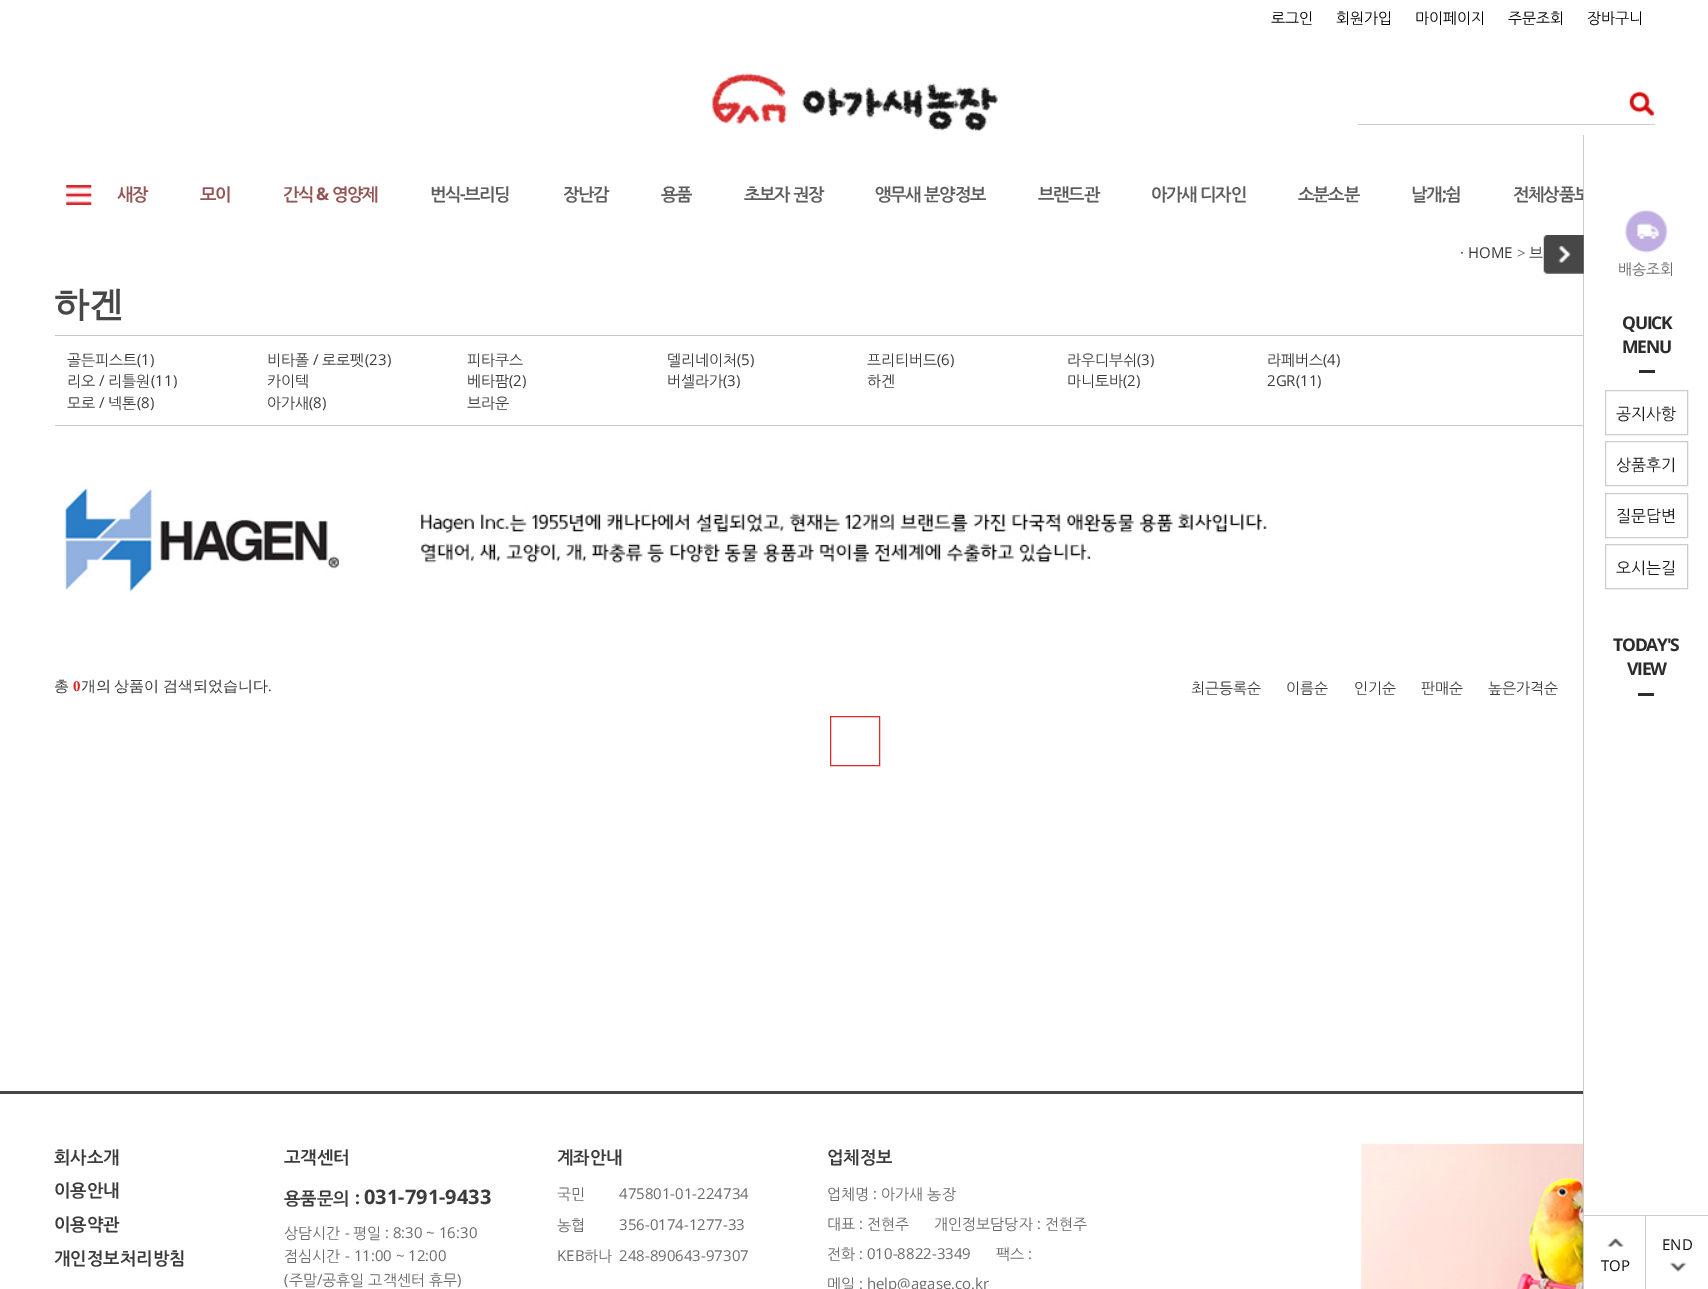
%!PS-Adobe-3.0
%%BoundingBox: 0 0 1708 1289
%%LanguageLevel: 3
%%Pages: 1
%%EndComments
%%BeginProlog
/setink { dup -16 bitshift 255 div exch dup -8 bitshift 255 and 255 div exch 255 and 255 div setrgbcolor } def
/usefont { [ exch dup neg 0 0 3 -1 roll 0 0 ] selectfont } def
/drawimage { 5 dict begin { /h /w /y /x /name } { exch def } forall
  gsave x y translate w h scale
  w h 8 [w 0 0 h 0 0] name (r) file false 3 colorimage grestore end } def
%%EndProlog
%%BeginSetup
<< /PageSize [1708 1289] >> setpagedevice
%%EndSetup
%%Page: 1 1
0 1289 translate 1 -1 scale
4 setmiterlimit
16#FFFFFF setink
0 0 1708 1289 rectfill
/NanumGothic-Regular 15 usefont
16#000000 setink
[
    [(로그인) 1271 23]
    [(회원가입) 1336 23]
    [(마이페이지) 1415 23]
    [(주문조회) 1508 23]
    [(장바구니) 1587 23]
] { aload pop moveto show } forall
(img1.raw) 711 73 288 59 drawimage
16#CACACA setink
1358 124 297 1 rectfill
(img2.raw) 1628 91 27 26 drawimage
(img3.raw) 66 185 26 20 drawimage
/NanumGothic-Bold 17.5 usefont
16#955454 setink
117 200 moveto -1.25 0 (새장) ashow
200 200 moveto -1.25 0 (모이) ashow
283 200 moveto -1.25 0 (간식) ashow
/OpenSans-Bold 17.5 usefont
316 200 moveto -1.25 0 (&) ashow
/NanumGothic-Bold 17.5 usefont
332 200 moveto -1.25 0 (영양제) ashow
16#5D5D5D setink
430 200 moveto -1.25 0 (번식) ashow
/OpenSans-Bold 17.5 usefont
460 200 moveto -1.25 0 (-) ashow
/NanumGothic-Bold 17.5 usefont
464 200 moveto -1.25 0 (브리딩) ashow
563 200 moveto -1.25 0 (장난감) ashow
661 200 moveto -1.25 0 (용품) ashow
744 200 moveto -1.25 0 (초보자 권장) ashow
875 200 moveto -1.25 0 (앵무새 분양정보) ashow
1038 200 moveto -1.25 0 (브랜드관) ashow
1151 200 moveto -1.25 0 (아가새 디자인) ashow
1298 200 moveto -1.25 0 (소분소분) ashow
1411 200 moveto -1.25 0 (날개 쉼) ashow
/OpenSans-Bold 17.5 usefont
1442 200 moveto -1.25 0 (;) ashow
/NanumGothic-Bold 17.5 usefont
1513 200 moveto -1.25 0 (전체상품보) ashow
/OpenSans-Regular 15 usefont
16#3B3B3B setink
1460 258 moveto (· HOME) show
/LiberationSerif-Regular 15 usefont
1517 258 moveto (>) show
/NanumGothic-Regular 15 usefont
1529 258 moveto (브) show
/WenQuanYiZenHei-Bold 35 usefont
16#474747 setink
54 316 moveto (하겐) show
16#C7C7C7 setink
55 335 1528 1 rectfill
55 425 1528 1 rectfill
/NanumGothic-Regular 15 usefont
16#3B3B3B setink
67 365 moveto (골든피스트) show
/OpenSans-Regular 15 usefont
137 365 moveto (\(1\)) show
/NanumGothic-Regular 15 usefont
267 365 moveto (비타폴) show
/OpenSans-Regular 15 usefont
313 365 moveto (/) show
/NanumGothic-Regular 15 usefont
322 365 moveto (로로펫) show
/OpenSans-Regular 15 usefont
365 365 moveto (\(23\)) show
/NanumGothic-Regular 15 usefont
467 365 moveto (피타쿠스) show
667 365 moveto (델리네이처) show
/OpenSans-Regular 15 usefont
737 365 moveto (\(5\)) show
/NanumGothic-Regular 15 usefont
867 365 moveto (프리티버드) show
/OpenSans-Regular 15 usefont
937 365 moveto (\(6\)) show
/NanumGothic-Regular 15 usefont
1067 365 moveto (라우디부쉬) show
/OpenSans-Regular 15 usefont
1137 365 moveto (\(3\)) show
/NanumGothic-Regular 15 usefont
1267 365 moveto (라페버스) show
/OpenSans-Regular 15 usefont
1323 365 moveto (\(4\)) show
/NanumGothic-Regular 15 usefont
67 386 moveto (리오) show
/OpenSans-Regular 15 usefont
99 386 moveto (/) show
/NanumGothic-Regular 15 usefont
108 386 moveto (리틀원) show
/OpenSans-Regular 15 usefont
151 386 moveto (\(11\)) show
/NanumGothic-Regular 15 usefont
267 386 moveto (카이텍) show
467 386 moveto (베타팜) show
/OpenSans-Regular 15 usefont
509 386 moveto (\(2\)) show
/NanumGothic-Regular 15 usefont
667 386 moveto (버셀라가) show
/OpenSans-Regular 15 usefont
723 386 moveto (\(3\)) show
/NanumGothic-Regular 15 usefont
867 386 moveto (하겐) show
1067 386 moveto (마니토바) show
/OpenSans-Regular 15 usefont
1123 386 moveto (\(2\)) show
1267 386 moveto (2GR\(11\)) show
/NanumGothic-Regular 15 usefont
67 408 moveto (모로) show
/OpenSans-Regular 15 usefont
99 408 moveto (/) show
/NanumGothic-Regular 15 usefont
108 408 moveto (넥톤) show
/OpenSans-Regular 15 usefont
137 408 moveto (\(8\)) show
/NanumGothic-Regular 15 usefont
267 408 moveto (아가새) show
/OpenSans-Regular 15 usefont
309 408 moveto (\(8\)) show
/NanumGothic-Regular 15 usefont
467 408 moveto (브라운) show
(img4.raw) 64 486 1203 108 drawimage
/WenQuanYiZenHei-Medium 15 usefont
54 691 moveto (총) show
/LiberationSerif-Bold 15 usefont
16#D72A2A setink
73 691 moveto (0) show
/WenQuanYiZenHei-Medium 15 usefont
16#3B3B3B setink
81 691 moveto -1 0 32 (개의 상품이 검색되었습니다) widthshow
/LiberationSerif-Regular 15 usefont
268 691 moveto (.) show
/NanumGothic-Regular 15 usefont
[
    [(최근등록순) 1191 693]
    [(이름순) 1286 693]
    [(인기순) 1354 693]
    [(판매순) 1421 693]
    [(높은가격순) 1488 693]
] { aload pop moveto show } forall
16#D72A2A setink
830.5 716.5 49 49 rectstroke
16#474747 setink
0 1091 1583 3 rectfill
/NanumGothic-Bold 17.5 usefont
16#3B3B3B setink
[
    [(회사소개) 54 1163]
    [(이용안내) 54 1196]
    [(이용약관) 54 1230]
    [(개인정보처리방침) 54 1264]
    [(고객센터) 284 1163]
    [(용품문의) 284 1204]
] { aload pop moveto show } forall
/OpenSans-Bold 17.5 usefont
355 1204 moveto (:) show
/OpenSans-Bold 20 usefont
364 1204 moveto (031-791-9433) show
/NanumGothic-Regular 15 usefont
16#6B6B6B setink
284 1238 moveto (상담시간) show
/OpenSans-Regular 15 usefont
345 1238 moveto (-) show
/NanumGothic-Regular 15 usefont
353 1238 moveto (평일) show
/OpenSans-Regular 15 usefont
385 1238 moveto (: 8:30 ~ 16:30) show
/NanumGothic-Regular 15 usefont
284 1261 moveto (점심시간) show
/OpenSans-Regular 15 usefont
345 1261 moveto (- 11:00 ~ 12:00) show
284 1285 moveto (\() show
/NanumGothic-Regular 15 usefont
289 1285 moveto (주말) show
/OpenSans-Regular 15 usefont
317 1285 moveto (/) show
/NanumGothic-Regular 15 usefont
322 1285 moveto (공휴일 고객센터 휴무) show
/OpenSans-Regular 15 usefont
457 1285 moveto (\)) show
/NanumGothic-Bold 17.5 usefont
16#3B3B3B setink
557 1163 moveto (계좌안내) show
/NanumGothic-Regular 15 usefont
16#6B6B6B setink
557 1199 moveto (국민) show
/OpenSans-Regular 15 usefont
619 1199 moveto (475801-01-224734) show
/NanumGothic-Regular 15 usefont
557 1230 moveto (농협) show
/OpenSans-Regular 15 usefont
619 1230 moveto (356-0174-1277-33) show
557 1261 moveto (KEB) show
/NanumGothic-Regular 15 usefont
584 1261 moveto (하나) show
/OpenSans-Regular 15 usefont
619 1261 moveto (248-890643-97307) show
/NanumGothic-Bold 17.5 usefont
16#3B3B3B setink
827 1163 moveto (업체정보) show
/NanumGothic-Regular 15 usefont
16#6B6B6B setink
827 1199 moveto (업체명) show
/OpenSans-Regular 15 usefont
873 1199 moveto (:) show
/NanumGothic-Regular 15 usefont
881 1199 moveto (아가새 농장) show
827 1229 moveto (대표) show
/OpenSans-Regular 15 usefont
859 1229 moveto (:) show
/NanumGothic-Regular 15 usefont
867 1229 moveto (전현주) show
934 1229 moveto (개인정보담당자) show
/OpenSans-Regular 15 usefont
1037 1229 moveto (:) show
/NanumGothic-Regular 15 usefont
1045 1229 moveto (전현주) show
827 1259 moveto (전화) show
/OpenSans-Regular 15 usefont
859 1259 moveto (: 010-8822-3349) show
/NanumGothic-Regular 15 usefont
996 1259 moveto (팩스) show
/OpenSans-Regular 15 usefont
1028 1259 moveto (:) show
/NanumGothic-Regular 15 usefont
827 1289 moveto (메일) show
/OpenSans-Regular 15 usefont
859 1289 moveto (: help@agase.co.kr) show
(img5.raw) 1361 1143 222 146 drawimage
16#FFFFFF setink
1584 186 6 14 rectfill
16#CCCCCC setink
1583 135 1 1154 rectfill
(img6.raw) 1543 235 41 39 drawimage
(img7.raw) 1558 246 13 17 drawimage
(img8.raw) 1624 210 44 43 drawimage
/NanumGothic-Regular 15 usefont
16#6B6B6B setink
1618 274 moveto (배송조회) show
/OpenSans-Bold 17.5 usefont
16#2C2C2C setink
1622 329 moveto -1.25 0 (QUICK) ashow
1622 353 moveto -1.25 0 (MENU) ashow
1639 370 16 3 rectfill
16#CCCCCC setink
1605.5 390.5 82 44 rectstroke
/NanumGothic-Regular 16 usefont
16#1B1B1B setink
1616 419 moveto (공지사항) show
16#CCCCCC setink
1605.5 441.5 82 44 rectstroke
16#1B1B1B setink
1616 470 moveto (상품후기) show
16#CCCCCC setink
1605.5 493.5 82 44 rectstroke
16#1B1B1B setink
1616 521 moveto (질문답변) show
16#CCCCCC setink
1605.5 544.5 82 44 rectstroke
16#1B1B1B setink
1616 573 moveto (오시는길) show
/OpenSans-Bold 17.5 usefont
16#2C2C2C setink
1613 651 moveto -1.25 0 (TODAY'S) ashow
1627 675 moveto -1.25 0 (VIEW) ashow
[
    [1638 693 16 3 16#2C2C2C]
    [1584 1215 124 1 16#CCCCCC]
    [1645 1216 1 73 16#CCCCCC]
] { aload pop setink rectfill } forall
/OpenSans-Regular 15 usefont
16#111111 setink
1662 1250 moveto (END) show
(img9.raw) 1669 1262 18 10 drawimage
(img10.raw) 1607 1238 17 9 drawimage
1601 1271 moveto (TOP) show
showpage
%%EOF
